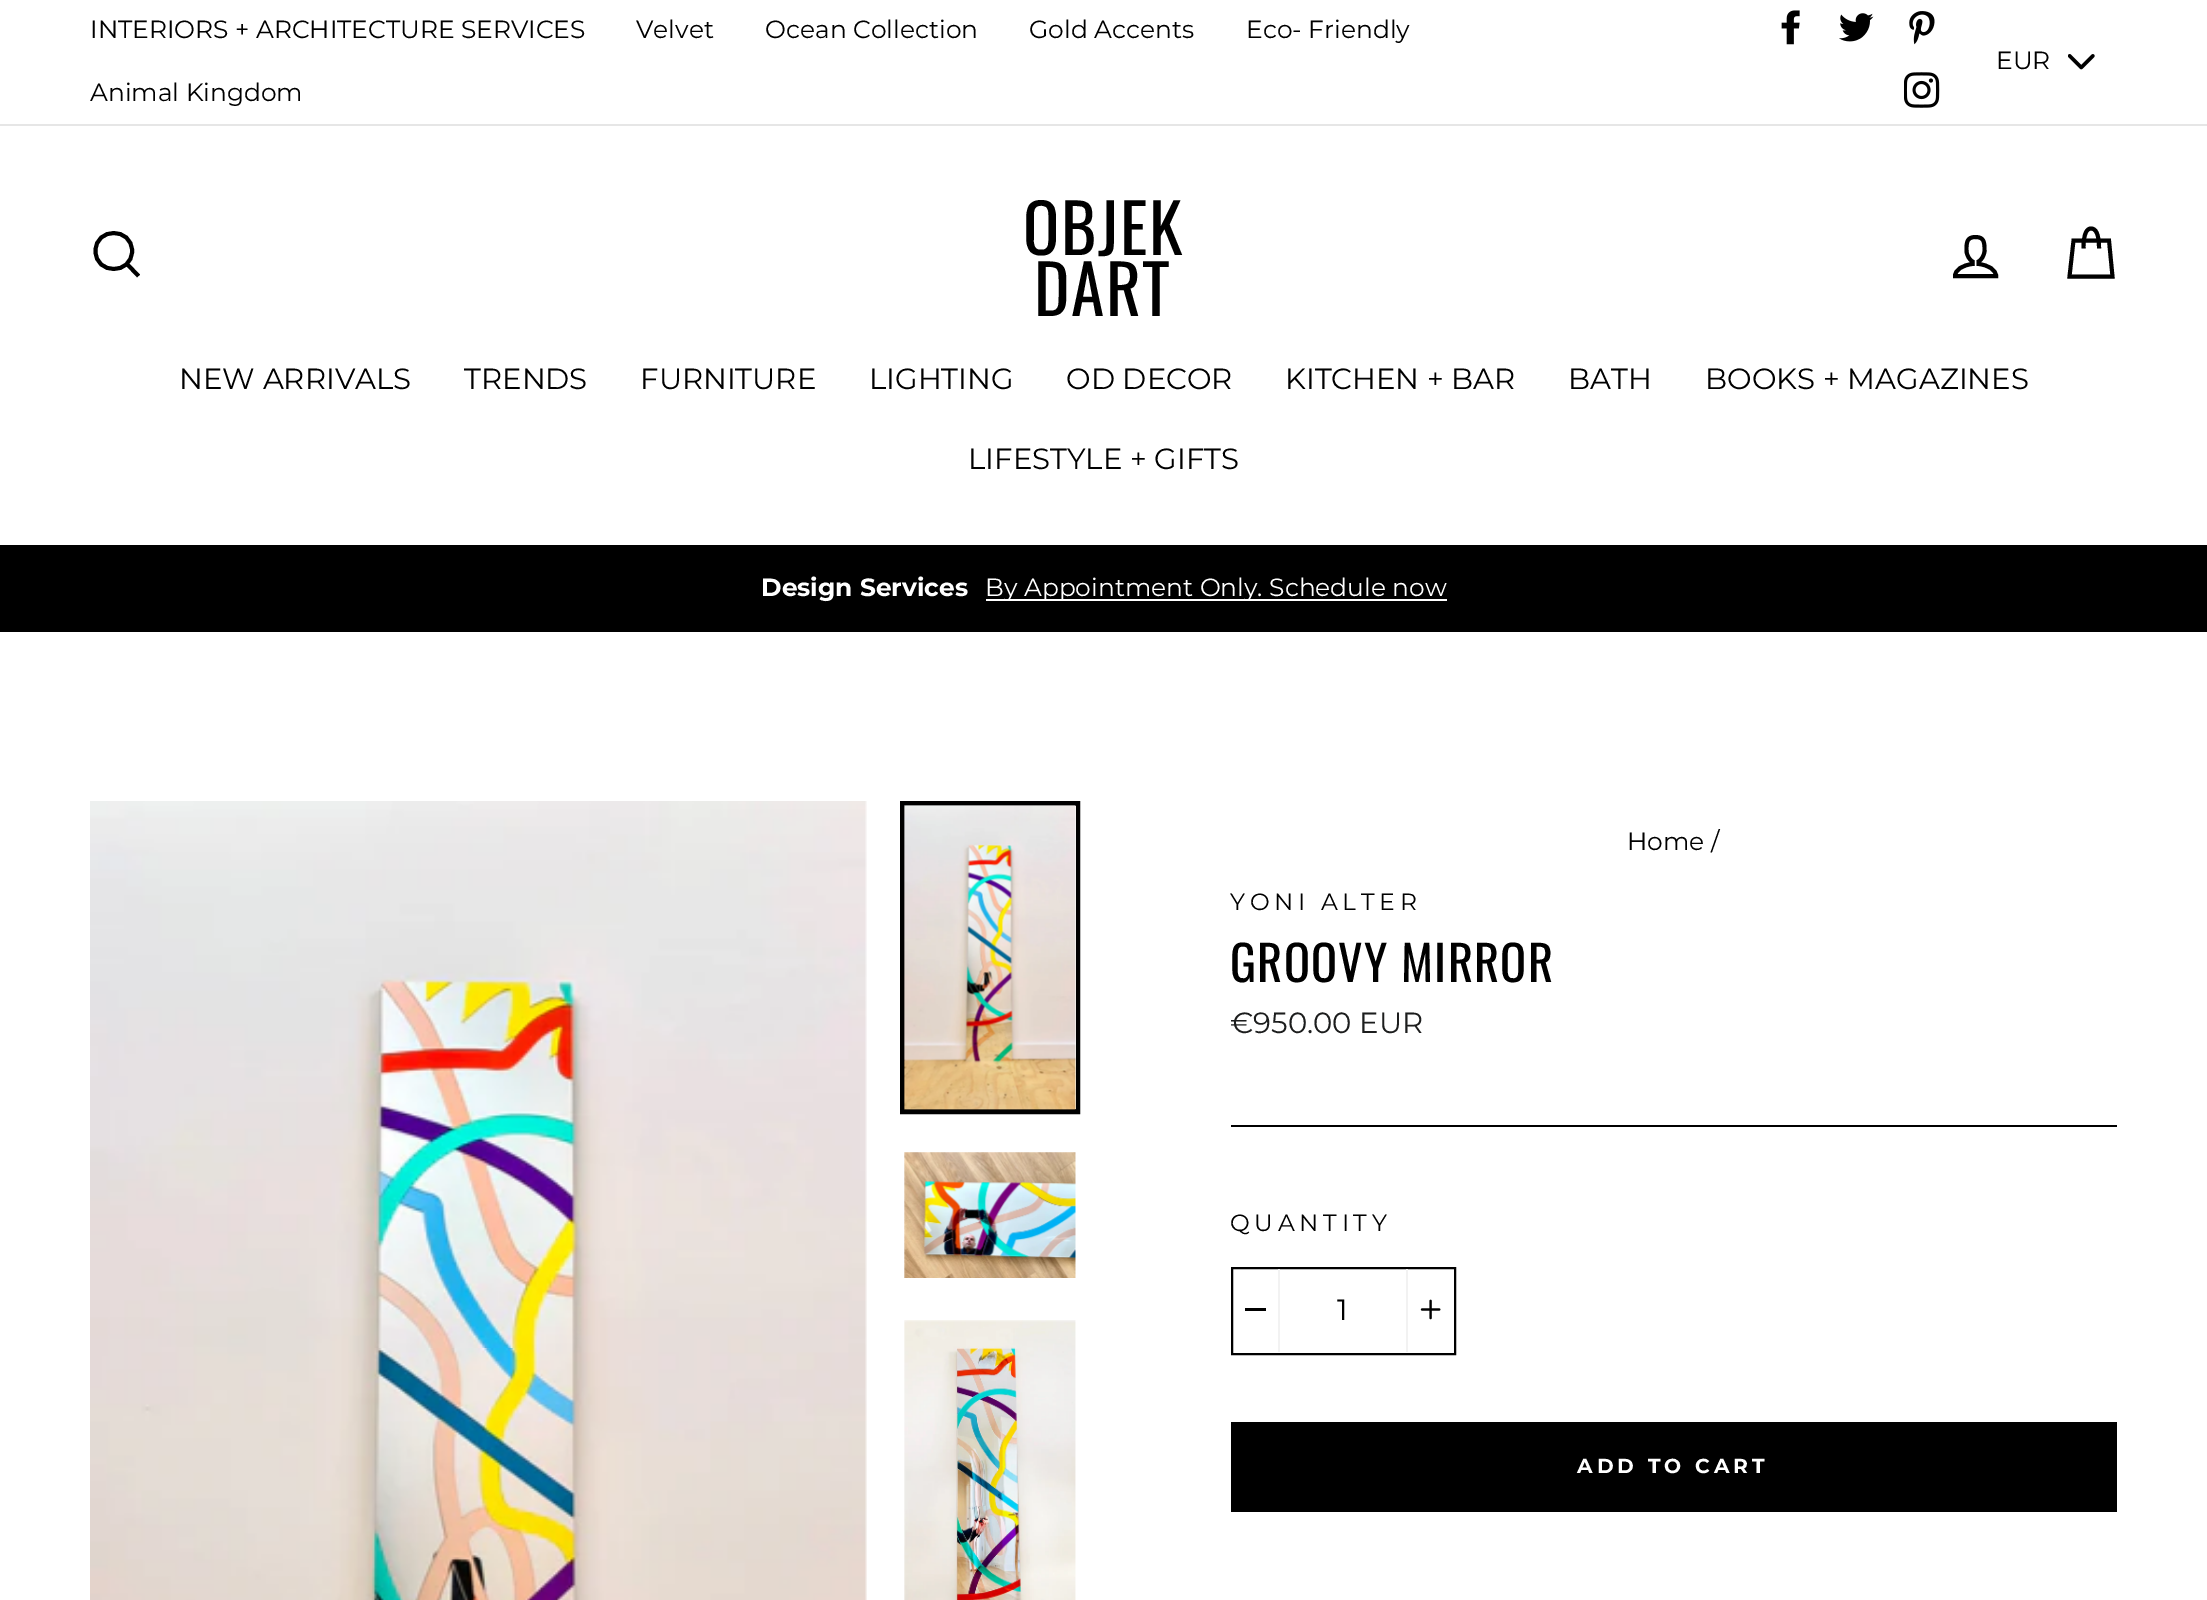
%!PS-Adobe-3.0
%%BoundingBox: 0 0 2207 1600
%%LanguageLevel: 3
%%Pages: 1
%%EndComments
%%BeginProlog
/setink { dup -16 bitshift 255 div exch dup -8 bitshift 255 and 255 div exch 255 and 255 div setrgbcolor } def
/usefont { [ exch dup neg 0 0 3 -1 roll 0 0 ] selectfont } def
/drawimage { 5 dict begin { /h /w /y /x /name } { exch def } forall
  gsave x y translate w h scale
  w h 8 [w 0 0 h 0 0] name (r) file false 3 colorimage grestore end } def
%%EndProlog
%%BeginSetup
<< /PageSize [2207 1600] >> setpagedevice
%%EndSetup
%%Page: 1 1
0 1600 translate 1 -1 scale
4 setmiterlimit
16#FFFFFF setink
0 0 2207 1600 rectfill
/Montserrat-Regular 24.9 usefont
16#000000 setink
[
    [(INTERIORS + ARCHITECTURE SERVICES) 90 38]
    [(Velvet) 636 38]
    [(Ocean Collection) 765 38]
    [(Gold Accents) 1029 38]
    [(Eco- Friendly) 1246 38]
    [(Animal Kingdom) 90 101]
] { aload pop moveto show } forall
(img1.raw) 1781 10 19 35 drawimage
(img2.raw) 1839 13 35 29 drawimage
(img3.raw) 1909 11 26 34 drawimage
(img4.raw) 1904 72 36 36 drawimage
(img5.raw) 2068 54 27 16 drawimage
1996 69 moveto (EUR) show
16#E6E6E6 setink
0 124 2207 2 rectfill
16#000000 setink
0 545 2207 87 rectfill
3.9 setlinewidth
132 251 moveto 132 275 95.5 275 95.5 251 curveto 95.5 227 132 227 132 251 curveto closepath 138.5 276 moveto 127 264 lineto stroke
/Oswald-Regular 67.5 usefont
1023 255 moveto 1.5 0 (OBJEK) ashow
1034 316 moveto 1.5 0 (DART) ashow
1978.5 264 moveto 1978.5 261.5 lineto 1981.5 260 1984.5 255 1984.5 250.5 curveto 1984.5 243 1984.5 237 1975.5 237 curveto 1966.5 237 1966.5 243 1966.5 250.5 curveto 1966.5 255 1969.5 260 1972.5 261.5 curveto 1972.5 264 lineto 1962.5 265 1955 270 1955 276 curveto 1996 276 lineto 1996 270 1988.5 265 1978.5 264 curveto closepath stroke
2083.5 248.5 moveto 2083.5 233 2087 228.5 2091 228.5 curveto 2095.5 228.5 2099 233 2099 248.5 curveto 2073.5 240.5 moveto 2109 240.5 lineto 2112.5 276.5 lineto 2069.5 276.5 lineto closepath stroke
/Montserrat-Regular 29.25 usefont
[
    [(NEW ARRIVALS) 179 389]
    [(TRENDS) 464 389]
    [(FURNITURE) 640 389]
    [(LIGHTING) 869 389]
    [(OD DECOR) 1066 389]
    [(KITCHEN + BAR) 1285 389]
    [(BATH) 1568 389]
    [(BOOKS + MAGAZINES) 1705 389]
    [(LIFESTYLE + GIFTS) 968 469]
] { aload pop moveto show } forall
/Montserrat-Bold 24.9 usefont
16#FFFFFF setink
761 596 moveto (Design Services) show
986 599 461 2 rectfill
/Montserrat-Regular 24.9 usefont
985 596 moveto (By Appointment Only. Schedule now) show
(img6.raw) 90 801 777 799 drawimage
16#000000 setink
5 setlinewidth
902.5 803.5 175 308 rectstroke
16#FFFFFF setink
1075 806 1 303 rectfill
(img7.raw) 904 805 172 305 drawimage
(img8.raw) 904 1152 172 126 drawimage
(img9.raw) 904 1320 172 280 drawimage
16#000000 setink
1627 850 moveto (Home /) show
/Montserrat-Regular 23.5 usefont
1230 910 moveto 4.75 0 (YONI ALTER) ashow
/Oswald-Regular 48.5 usefont
1230 982 moveto 1.25 0 (GROOVY MIRROR) ashow
/Montserrat-Regular 29.25 usefont
16#1C1D1D setink
1230 1033 moveto (€950.00 EUR) show
16#000000 setink
1231 1125 886 2 rectfill
/Montserrat-Regular 23.5 usefont
1230 1231 moveto 4.75 0 (QUANTITY) ashow
2 setlinewidth
1232 1268 223 86 rectstroke
16#F2F2F2 setink
1278 1269 2 83 rectfill
16#000000 setink
1245 1308 21 3 rectfill
/Montserrat-Regular 29.25 usefont
1337 1320 moveto (1) show
16#F2F2F2 setink
1406 1269 2 83 rectfill
(img10.raw) 1420 1299 21 21 drawimage
16#000000 setink
1231 1422 886 90 rectfill
/Montserrat-Bold 20.25 usefont
16#FFFFFF setink
1577 1473 moveto 4 0 (ADD TO CART) ashow
showpage
%%EOF
